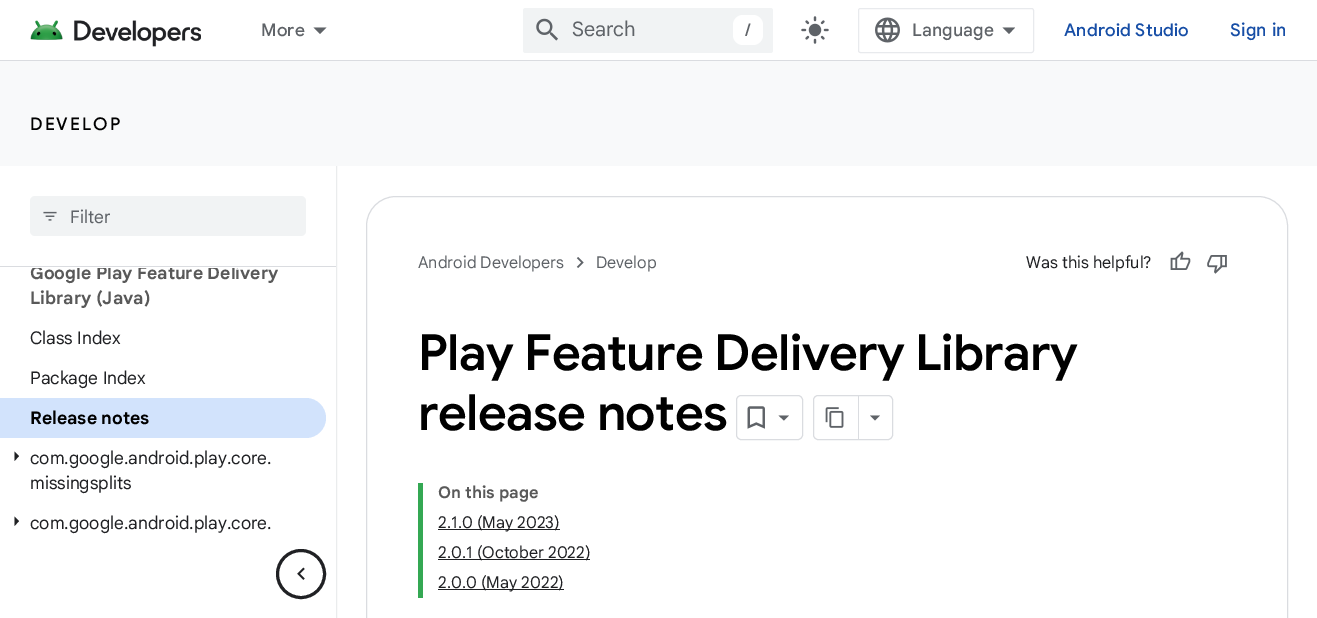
%!PS-Adobe-3.0
%%BoundingBox: 0 0 1317 618
%%LanguageLevel: 3
%%Pages: 1
%%EndComments
%%BeginProlog
/setink { dup -16 bitshift 255 div exch dup -8 bitshift 255 and 255 div exch 255 and 255 div setrgbcolor } def
/usefont { [ exch dup neg 0 0 3 -1 roll 0 0 ] selectfont } def
/setalpha { dup .setfillconstantalpha .setstrokeconstantalpha } def
/disc { newpath 0 360 arc closepath } def
/rrect { 5 dict begin { /r /h /w /y /x } { exch def } forall
  x r add y moveto x w add y 2 copy h add r arct x w add y h add x 1 index r arct
  x y h add x y r arct x y 2 copy exch w add exch r arct closepath end } def
/softshadow { 12 dict begin { /a /b /q /h /w /y /x } { exch def } forall gsave /was 0 def
  9 -2 -9 { dup b mul 4 div /e exch def 1 sub .425 mul 2.718 exch exp 1 add a .99 .min exch div /now exch def
    1 1 now sub 1 was sub div sub setalpha /was now def
    w h .min e 2 mul add 0 gt { x e sub y e sub w e 2 mul add h e 2 mul add
      q e add b .6 mul add w h .min 2 div e add .min 0 .max rrect fill } if } for grestore end } def
/drawimage { 5 dict begin { /h /w /y /x /name } { exch def } forall
  gsave x y translate w h scale
  w h 8 [w 0 0 h 0 0] name (r) file false 3 colorimage grestore end } def
%%EndProlog
%%BeginSetup
<< /PageSize [1317 618] /PageUsesTransparency true >> setpagedevice
%%EndSetup
%%Page: 1 1
0 .pushpdf14devicefilter
0 618 translate 1 -1 scale
4 setmiterlimit
16#FFFFFF setink
0 0 1317 618 rectfill
gsave
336 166 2 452 rectclip
16#BDC1C6 setink
0 1 336 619 0 1 1 softshadow
grestore
336 0 2 60 rectfill
16#DADCE0 setink
0 60 1317 1 rectfill
(img1.raw) 30 20 171 27 drawimage
/GoogleSans-Medium 17.5 usefont
16#5F6368 setink
261 36 moveto 0.25 0 (More) ashow
313.5 27.5 moveto 326.5 27.5 lineto 320 34 lineto closepath fill
16#F1F3F4 setink
523 8 250 45 2.5 rrect fill
(img2.raw) 536 18 22 23 drawimage
/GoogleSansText-Regular 20 usefont
16#5F6368 setink
572 36 moveto (Search) show
16#FFFFFF setink
733 15 30 30 10 rrect fill
/GoogleSans-Medium 17.5 usefont
16#5F6368 setink
745 36 moveto (/) show
(img3.raw) 801 16 28 28 drawimage
16#E8EAED setink
858.5 8.5 175 44 2 rrect stroke
(img4.raw) 875 17 25 26 drawimage
/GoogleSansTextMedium-Medium 17.5 usefont
16#5F6368 setink
912 36 moveto (Language) show
1009 34 moveto 1002.5 27.5 lineto 1015 27.5 lineto closepath fill
/GoogleSans-Medium 17.5 usefont
16#174EA6 setink
1064 36 moveto 0.25 0 (Android Studio) ashow
/GoogleSansTextMedium-Medium 17.5 usefont
1230 36 moveto 0.25 0 (Sign in) ashow
16#F8F9FA setink
0 61 1317 105 rectfill
/GoogleSans-Medium 17.5 usefont
16#000000 setink
30 130 moveto 2 0 (DEVELOP) ashow
/GoogleSansText-Bold 17.5 usefont
16#595959 setink
30 279 moveto (Google Play Feature Delivery) show
16#FFFFFF setink
32 265 208 3 rectfill
16#DADCE0 setink
0 266 336 1 rectfill
16#F1F3F4 setink
30 196 276 40 5 rrect fill
(img5.raw) 43 211 14 10 drawimage
/GoogleSansText-Regular 17.5 usefont
16#5F6368 setink
70 223 moveto (Filter) show
/GoogleSansText-Bold 17.5 usefont
16#595959 setink
30 304 moveto (Library \(Java\)) show
/GoogleSansText-Regular 17.5 usefont
16#202124 setink
30 344 moveto (Class Index) show
30 384 moveto (Package Index) show
16#D2E3FC setink
0 398 moveto 306 398 lineto 317 398 326 407 326 418 curveto 326 429 317 438 306 438 curveto 0 438 lineto closepath fill
/GoogleSansText-Bold 17.5 usefont
16#000000 setink
30 424 moveto (Release notes) show
16#202124 setink
14.5 461 moveto 14.5 451.5 lineto 19 456 lineto closepath fill
/GoogleSansText-Regular 17.5 usefont
30 464 moveto (com.google.android.play.core.) show
30 489 moveto (missingsplits) show
14.5 526 moveto 14.5 516.5 lineto 19 521 lineto closepath fill
30 529 moveto (com.google.android.play.core.) show
3 setlinewidth
301 574 23.5 disc stroke
(img6.raw) 297 567 8 13 drawimage
16#DADCE0 setink
1 setlinewidth
366.5 196.5 921 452 29.5 rrect stroke
/GoogleSansText-Regular 16.25 usefont
16#5F6368 setink
418 268 moveto (Android Developers) show
(img7.raw) 576 257 8 11 drawimage
596 268 moveto (Develop) show
16#202124 setink
1026 268 moveto (Was this helpful?) show
(img8.raw) 1170 251 21 19 drawimage
(img9.raw) 1207 255 20 19 drawimage
/GoogleSans-SemiBold 50 usefont
16#000000 setink
418 370 moveto -0.6 0 (Play Feature Delivery Library) ashow
418 430 moveto -0.6 0 (release notes) ashow
16#DADCE0 setink
736.5 395.5 66 44 4.5 rrect stroke
(img10.raw) 747 406 18 23 drawimage
16#5F6368 setink
778.5 415.5 moveto 789 415.5 lineto 784 420.5 lineto closepath fill
16#DADCE0 setink
813.5 395.5 79 44 4.5 rrect stroke
858 396 1 43 rectfill
(img11.raw) 825 407 19 21 drawimage
16#5F6368 setink
870 415.5 moveto 880 415.5 lineto 875 420.5 lineto closepath fill
16#34A853 setink
418 483 5 115 rectfill
/GoogleSansText-Bold 16.25 usefont
16#595959 setink
438 498 moveto (On this page) show
16#202124 setink
438 529 122 1 rectfill
/GoogleSansText-Regular 16.25 usefont
438 528 moveto (2.1.0 \(May 2023\)) show
438 559 152 1 rectfill
438 558 moveto (2.0.1 \(October 2022\)) show
438 589 126 1 rectfill
438 588 moveto (2.0.0 \(May 2022\)) show
.poppdf14devicefilter showpage
%%EOF
